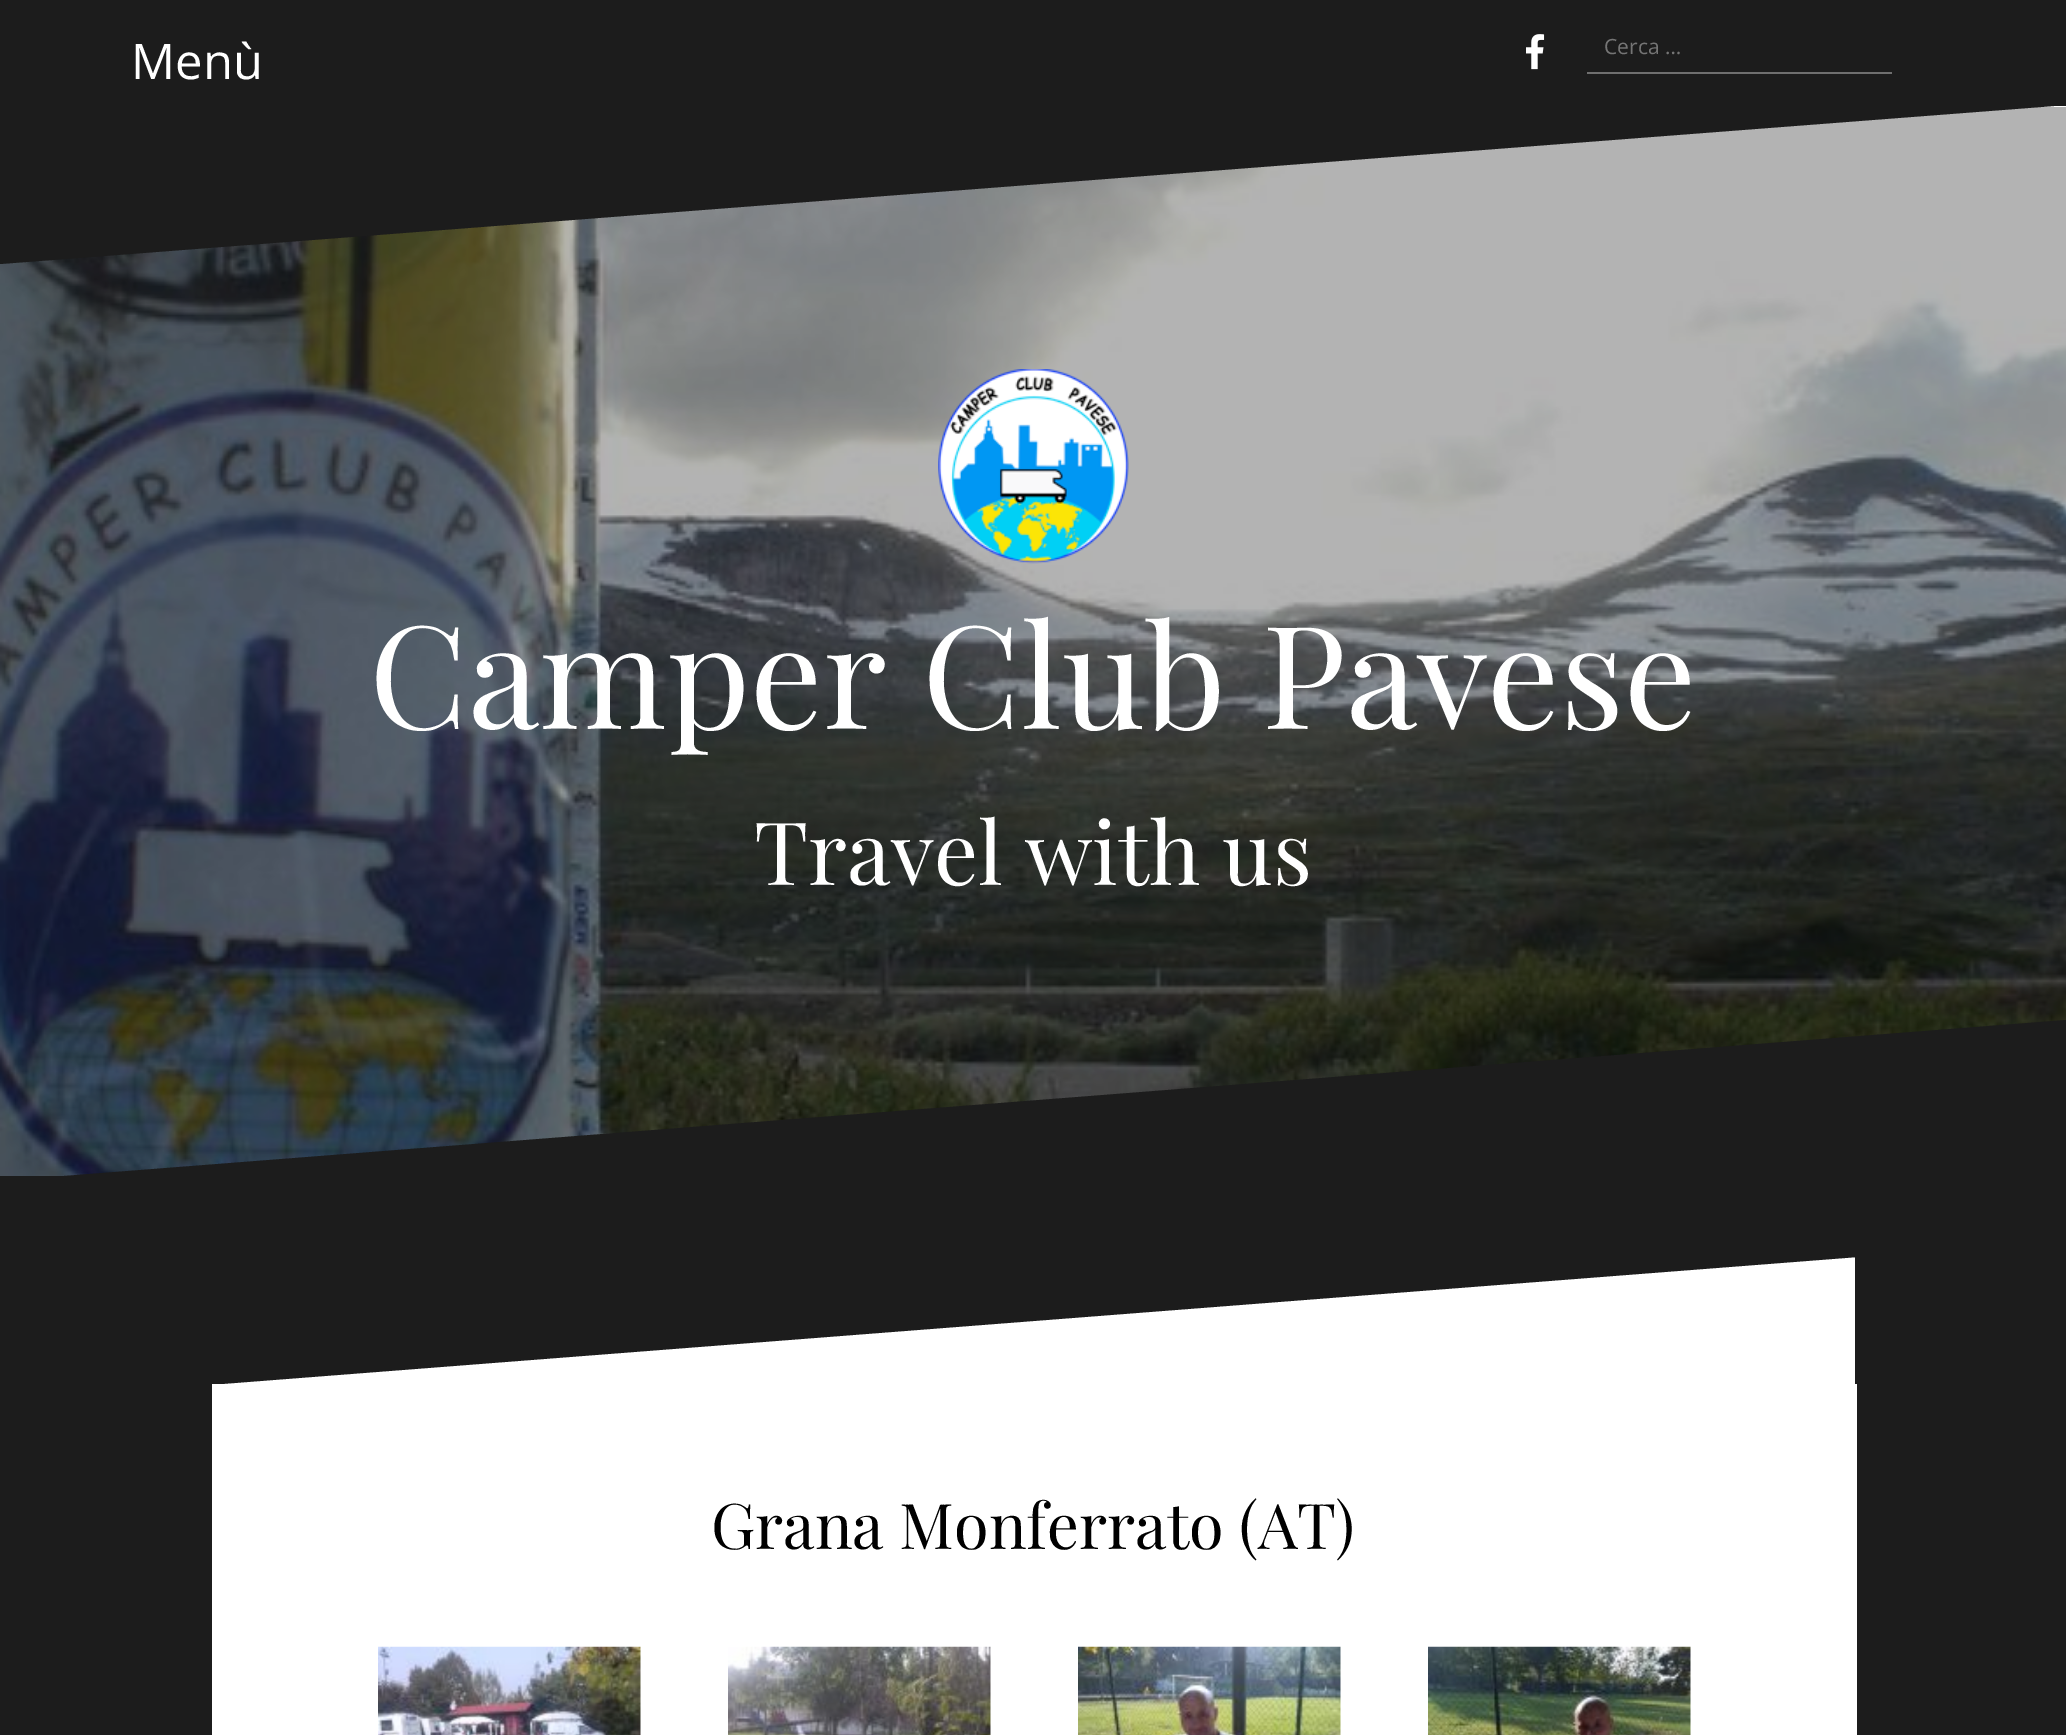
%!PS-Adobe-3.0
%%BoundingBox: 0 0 2066 1735
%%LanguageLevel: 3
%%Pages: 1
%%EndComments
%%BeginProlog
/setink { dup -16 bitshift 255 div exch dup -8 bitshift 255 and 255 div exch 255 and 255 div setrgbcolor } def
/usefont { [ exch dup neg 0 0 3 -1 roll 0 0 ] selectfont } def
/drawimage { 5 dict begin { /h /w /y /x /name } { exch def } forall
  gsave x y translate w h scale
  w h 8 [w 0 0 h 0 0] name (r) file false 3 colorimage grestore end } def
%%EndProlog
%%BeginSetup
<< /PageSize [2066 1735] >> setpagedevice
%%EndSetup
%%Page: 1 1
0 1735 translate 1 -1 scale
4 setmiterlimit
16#1C1C1C setink
0 0 2066 1735 rectfill
/OpenSans-Regular 49 usefont
16#FFFFFF setink
131 79 moveto (Menù) show
(img1.raw) 1526 34 19 36 drawimage
16#6F6F6F setink
1587 72 305 2 rectfill
/OpenSans-Regular 21 usefont
16#757575 setink
1604 54 moveto (Cerca …) show
(img2.raw) 0 106 2066 1070 drawimage
16#1C1C1C setink
0 264 moveto 0 105 lineto 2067 105 lineto fill
(img3.raw) 938 369 191 195 drawimage
/PlayfairDisplay-Regular 143.5 usefont
16#FFFFFF setink
369 729 moveto (Camper Club Pavese) show
/PlayfairDisplay-Regular 87.5 usefont
754 885 moveto (Travel with us) show
gsave
0 1017 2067 163 rectclip
16#1C1C1C setink
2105 1017 moveto 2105 1181 lineto 0 1181 lineto fill
grestore
212 1384 1645 351 rectfill
gsave
212 1255 1643 131 rectclip
1887 1255 moveto 1887 1385 lineto 212 1385 lineto fill
grestore
/PlayfairDisplay-Regular 63 usefont
16#000000 setink
711 1549 moveto (Grana Monferrato \(AT\)) show
(img4.raw) 378 1646 263 89 drawimage
(img5.raw) 728 1646 263 89 drawimage
(img6.raw) 1078 1646 263 89 drawimage
(img7.raw) 1428 1646 263 89 drawimage
showpage
%%EOF
